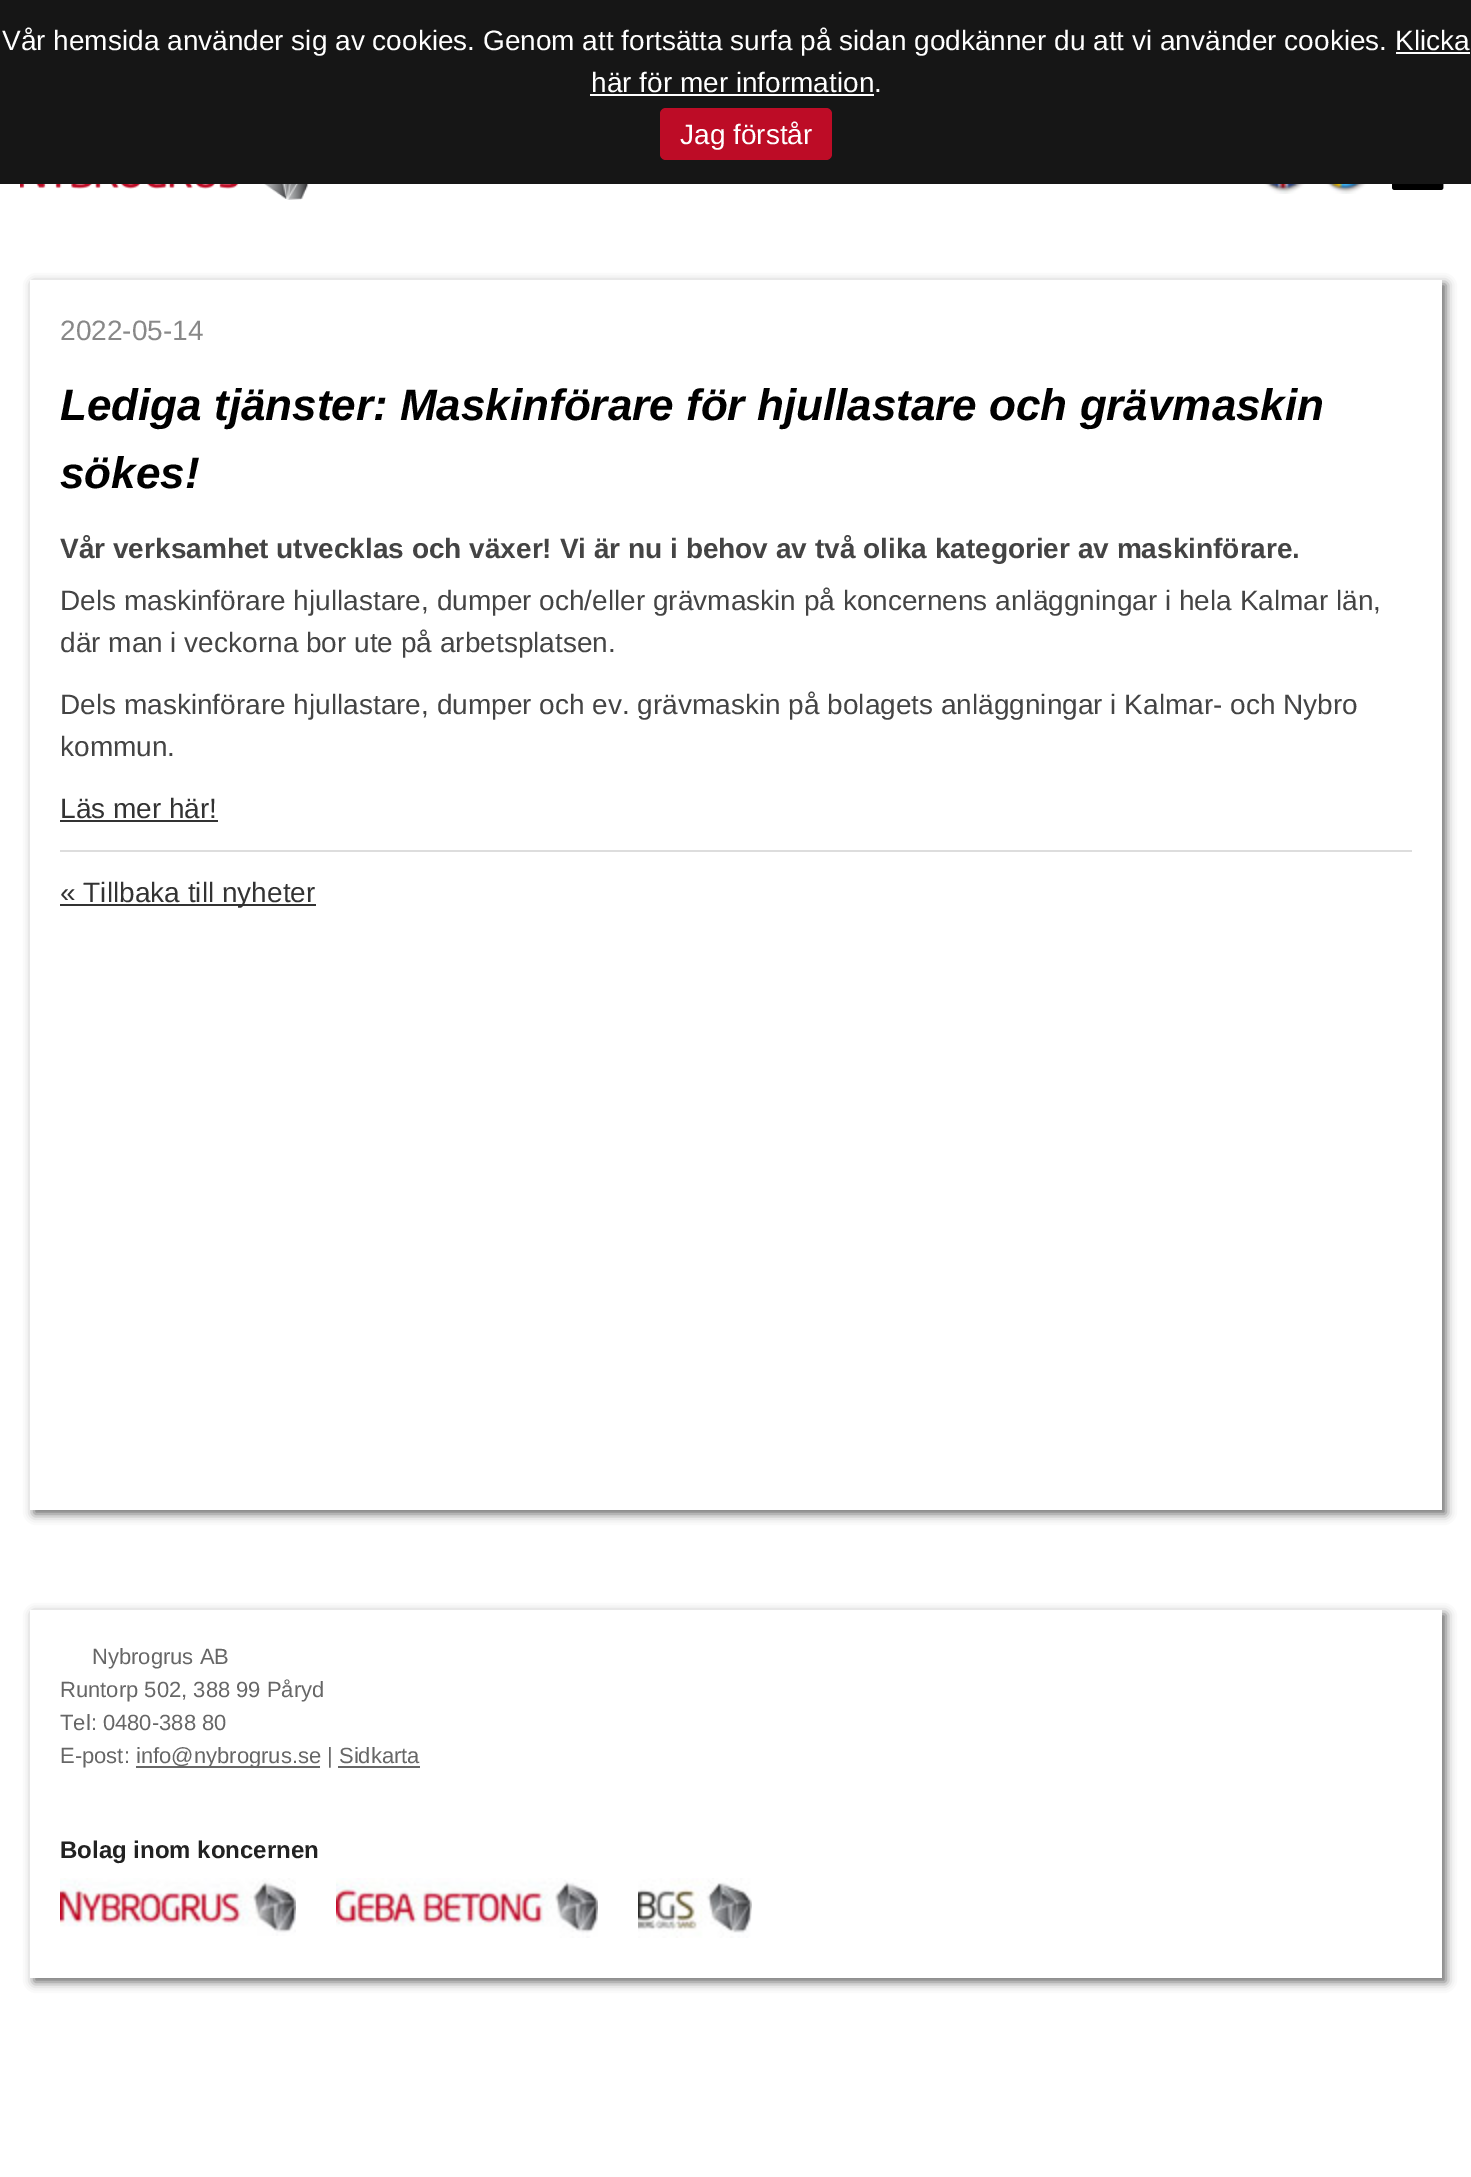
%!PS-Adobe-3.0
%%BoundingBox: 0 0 1471 2177
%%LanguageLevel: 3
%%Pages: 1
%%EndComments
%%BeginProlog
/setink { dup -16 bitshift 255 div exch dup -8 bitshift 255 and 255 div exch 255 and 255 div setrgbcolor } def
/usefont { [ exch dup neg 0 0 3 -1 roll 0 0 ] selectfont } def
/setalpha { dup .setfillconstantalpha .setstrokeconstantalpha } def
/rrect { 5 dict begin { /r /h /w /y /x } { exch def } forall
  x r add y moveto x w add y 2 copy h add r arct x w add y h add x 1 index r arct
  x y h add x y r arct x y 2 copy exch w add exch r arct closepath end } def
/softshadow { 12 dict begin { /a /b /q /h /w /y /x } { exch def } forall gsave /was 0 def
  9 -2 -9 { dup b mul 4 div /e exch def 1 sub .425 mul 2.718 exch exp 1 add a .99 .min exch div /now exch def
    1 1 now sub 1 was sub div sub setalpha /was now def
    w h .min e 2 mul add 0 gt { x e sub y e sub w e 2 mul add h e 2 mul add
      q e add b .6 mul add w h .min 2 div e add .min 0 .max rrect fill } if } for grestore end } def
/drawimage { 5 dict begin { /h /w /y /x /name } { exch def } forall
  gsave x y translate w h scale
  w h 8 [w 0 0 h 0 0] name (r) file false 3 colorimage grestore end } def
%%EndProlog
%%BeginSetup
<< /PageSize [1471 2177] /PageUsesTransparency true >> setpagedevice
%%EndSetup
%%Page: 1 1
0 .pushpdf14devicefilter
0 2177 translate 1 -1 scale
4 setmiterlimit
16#FFFFFF setink
0 0 1471 2177 rectfill
16#161616 setink
0 0 1471 184 rectfill
/LiberationSans-Regular 28 usefont
16#FFFFFF setink
2 50 moveto (Vår hemsida använder sig av cookies. Genom att fortsätta surfa på sidan godkänner du att vi använder cookies. Klicka) show
591 92 moveto (här för mer information.) show
1396 52 74 2 rectfill
590 94 284 2 rectfill
16#BD0C26 setink
660 108 172 52 6 rrect fill
16#FFFFFF setink
680 144 moveto (Jag förstår) show
(img1.raw) 20 184 289 16 drawimage
(img2.raw) 1261 184 46 10 drawimage
(img3.raw) 1323 184 46 10 drawimage
(img4.raw) 1392 184 52 6 drawimage
gsave
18 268 moveto 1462 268 lineto 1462 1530 lineto 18 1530 lineto closepath 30 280 moveto 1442 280 lineto 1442 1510 lineto 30 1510 lineto closepath eoclip newpath
16#000000 setink
34 284 1412 1230 0 5 0.6 softshadow
grestore
16#888888 setink
60 340 moveto (2022-05-14) show
/LiberationSans-BoldItalic 44 usefont
16#000000 setink
60 420 moveto (Lediga tjänster: Maskinförare för hjullastare och grävmaskin) show
60 488 moveto (sökes!) show
/LiberationSans-Bold 28 usefont
16#444444 setink
60 558 moveto (Vår verksamhet utvecklas och växer! Vi är nu i behov av två olika kategorier av maskinförare.) show
/LiberationSans-Regular 28 usefont
[
    [(Dels maskinförare hjullastare, dumper och/eller grävmaskin på koncernens anläggningar i hela Kalmar län,) 60 610]
    [(där man i veckorna bor ute på arbetsplatsen.) 60 652]
    [(Dels maskinförare hjullastare, dumper och ev. grävmaskin på bolagets anläggningar i Kalmar- och Nybro) 60 714]
    [(kommun.) 60 756]
] { aload pop moveto show } forall
16#333333 setink
60 818 moveto (Läs mer här!) show
[
    [60 820 158 2 16#333333]
    [60 850 1352 2 16#DDDDDD]
    [60 904 256 2 16#333333]
] { aload pop setink rectfill } forall
60 902 moveto (« Tillbaka till nyheter) show
gsave
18 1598 moveto 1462 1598 lineto 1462 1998 lineto 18 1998 lineto closepath 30 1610 moveto 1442 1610 lineto 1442 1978 lineto 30 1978 lineto closepath eoclip newpath
16#000000 setink
34 1614 1412 368 0 5 0.6 softshadow
grestore
/LiberationSans-Regular 22 usefont
16#666666 setink
[
    [(Nybrogrus AB) 92 1664]
    [(Runtorp 502, 388 99 Påryd) 60 1697]
    [(Tel: 0480-388 80) 60 1730]
    [(E-post:) 60 1763]
] { aload pop moveto show } forall
136 1766 184 2 rectfill
136 1763 moveto (info@nybrogrus.se | Sidkarta) show
338 1766 82 2 rectfill
/LiberationSans-Bold 24 usefont
16#222222 setink
60 1858 moveto (Bolag inom koncernen) show
(img5.raw) 60 1878 236 58 drawimage
(img6.raw) 336 1878 262 60 drawimage
(img7.raw) 638 1878 114 60 drawimage
.poppdf14devicefilter showpage
%%EOF
